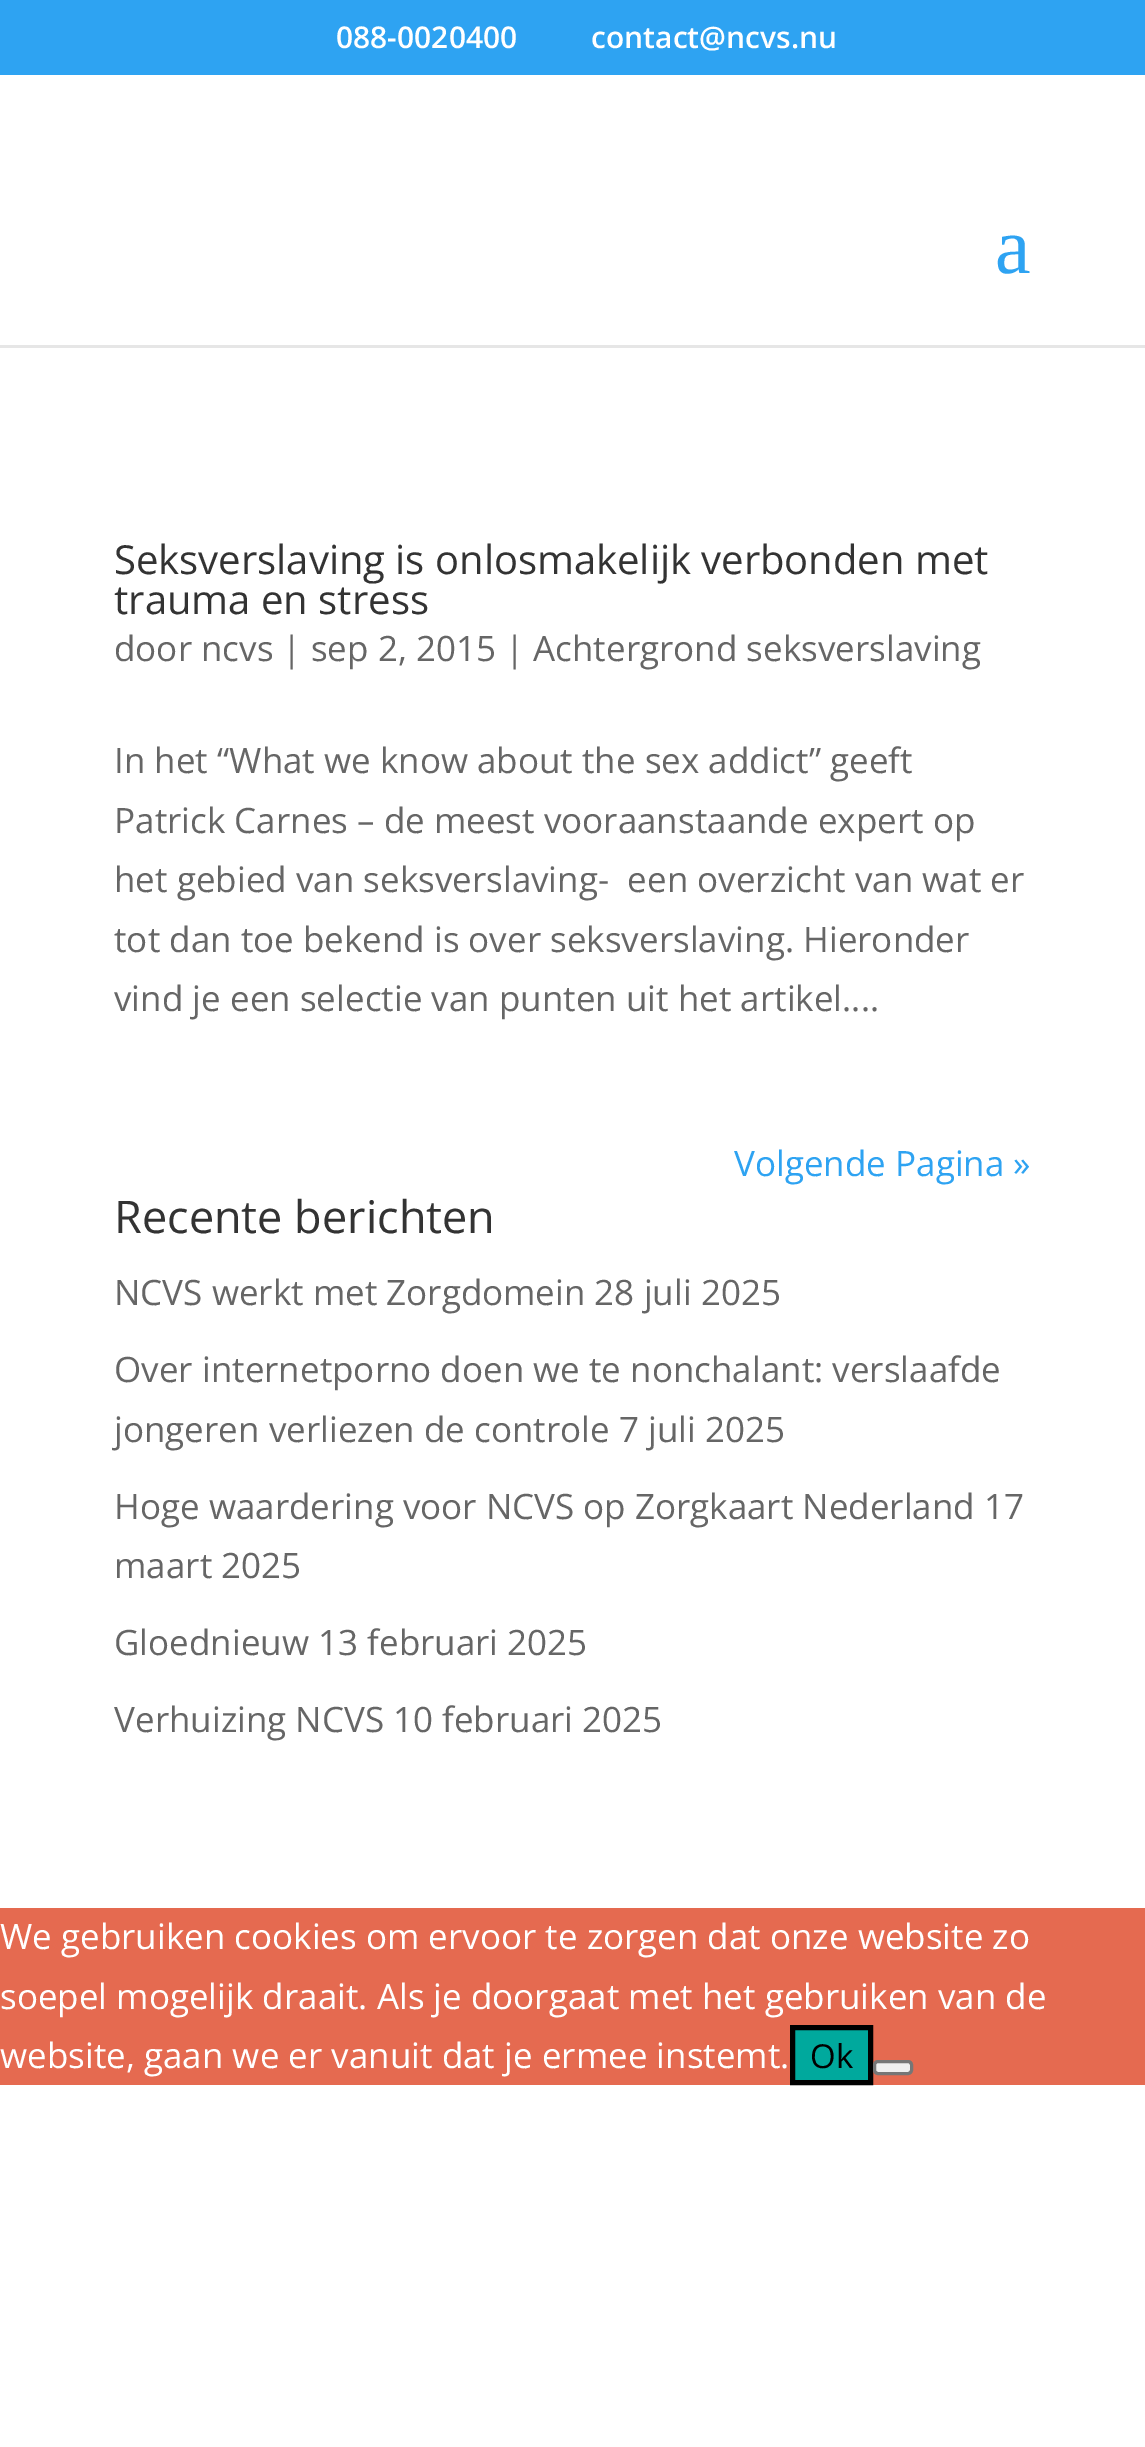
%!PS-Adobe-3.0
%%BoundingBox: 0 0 1145 2447
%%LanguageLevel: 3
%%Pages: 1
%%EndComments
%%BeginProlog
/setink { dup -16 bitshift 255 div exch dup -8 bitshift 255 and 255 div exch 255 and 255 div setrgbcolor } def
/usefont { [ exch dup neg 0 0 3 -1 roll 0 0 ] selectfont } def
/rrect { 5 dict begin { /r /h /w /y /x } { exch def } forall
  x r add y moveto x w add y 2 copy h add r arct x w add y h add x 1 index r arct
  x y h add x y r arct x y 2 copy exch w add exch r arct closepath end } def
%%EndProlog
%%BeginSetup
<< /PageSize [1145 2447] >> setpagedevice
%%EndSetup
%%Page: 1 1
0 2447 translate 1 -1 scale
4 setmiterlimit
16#FFFFFF setink
0 0 1145 2447 rectfill
16#2EA3F2 setink
0 0 1145 75 rectfill
/OpenSans-SemiBold 30 usefont
16#FFFFFF setink
336 48 moveto (088-0020400) show
591 48 moveto (contact@ncvs.nu) show
16#E6E6E6 setink
0 345 1145 3 rectfill
/LiberationSerif-Regular 80 usefont
16#2EA3F2 setink
995 273 moveto (a) show
/OpenSans-Regular 40 usefont
16#333333 setink
114 574 moveto (Seksverslaving is onlosmakelijk verbonden met) show
114 614 moveto (trauma en stress) show
/OpenSans-Regular 35 usefont
16#666666 setink
[
    [(door ncvs | sep 2, 2015 | Achtergrond seksverslaving) 114 661]
    [(In het “What we know about the sex addict” geeft) 114 773]
    [(Patrick Carnes – de meest vooraanstaande expert op) 114 833]
    [(het gebied van seksverslaving-  een overzicht van wat er) 114 892]
    [(tot dan toe bekend is over seksverslaving. Hieronder) 114 952]
    [(vind je een selectie van punten uit het artikel....) 114 1011]
] { aload pop moveto show } forall
16#2EA3F2 setink
734 1176 moveto (Volgende Pagina ») show
/OpenSans-Regular 45 usefont
16#333333 setink
114 1233 moveto (Recente berichten) show
/OpenSans-Regular 35 usefont
16#666666 setink
[
    [(NCVS werkt met Zorgdomein 28 juli 2025) 114 1305]
    [(Over internetporno doen we te nonchalant: verslaafde) 114 1382]
    [(jongeren verliezen de controle 7 juli 2025) 114 1442]
    [(Hoge waardering voor NCVS op Zorgkaart Nederland 17) 114 1519]
    [(maart 2025) 114 1578]
    [(Gloednieuw 13 februari 2025) 114 1655]
    [(Verhuizing NCVS 10 februari 2025) 114 1732]
] { aload pop moveto show } forall
16#E56A50 setink
0 1908 1145 177 rectfill
16#FFFFFF setink
[
    [(We gebruiken cookies om ervoor te zorgen dat onze website zo) 0 1949]
    [(soepel mogelijk draait. Als je doorgaat met het gebruiken van de) 0 2009]
    [(website, gaan we er vanuit dat je ermee instemt.) 0 2068]
] { aload pop moveto show } forall
16#00A99D setink
792.5 2027.5 moveto 870.5 2027.5 lineto 870.5 2082.5 lineto 792.5 2082.5 lineto closepath gsave fill grestore
16#000000 setink
5 setlinewidth
stroke
/OpenSans-Regular 33 usefont
810 2068 moveto (Ok) show
16#EFEFEF setink
874.5 2061.5 37 12 3.5 rrect gsave fill grestore
16#767676 setink
3 setlinewidth
stroke
showpage
%%EOF
